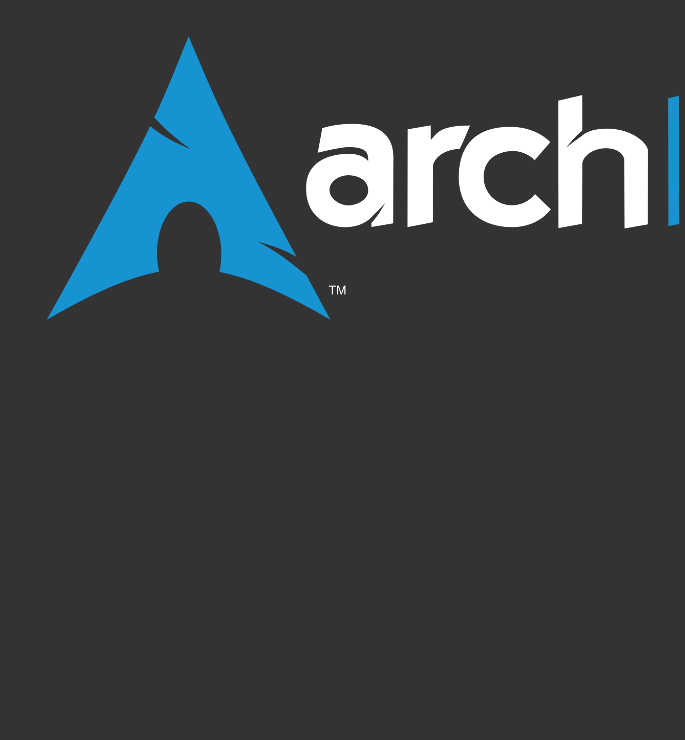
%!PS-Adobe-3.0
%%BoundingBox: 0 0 685 740
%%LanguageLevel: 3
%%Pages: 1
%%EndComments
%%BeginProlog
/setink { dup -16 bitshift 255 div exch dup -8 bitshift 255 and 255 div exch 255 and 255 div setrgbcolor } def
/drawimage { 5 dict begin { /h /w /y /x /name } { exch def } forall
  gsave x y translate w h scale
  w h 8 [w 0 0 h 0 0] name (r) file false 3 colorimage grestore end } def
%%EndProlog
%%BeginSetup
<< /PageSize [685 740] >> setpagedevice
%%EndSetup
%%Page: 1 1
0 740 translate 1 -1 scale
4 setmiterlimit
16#333333 setink
0 0 685 740 rectfill
(img1.raw) 47 36 633 284 drawimage
showpage
%%EOF
